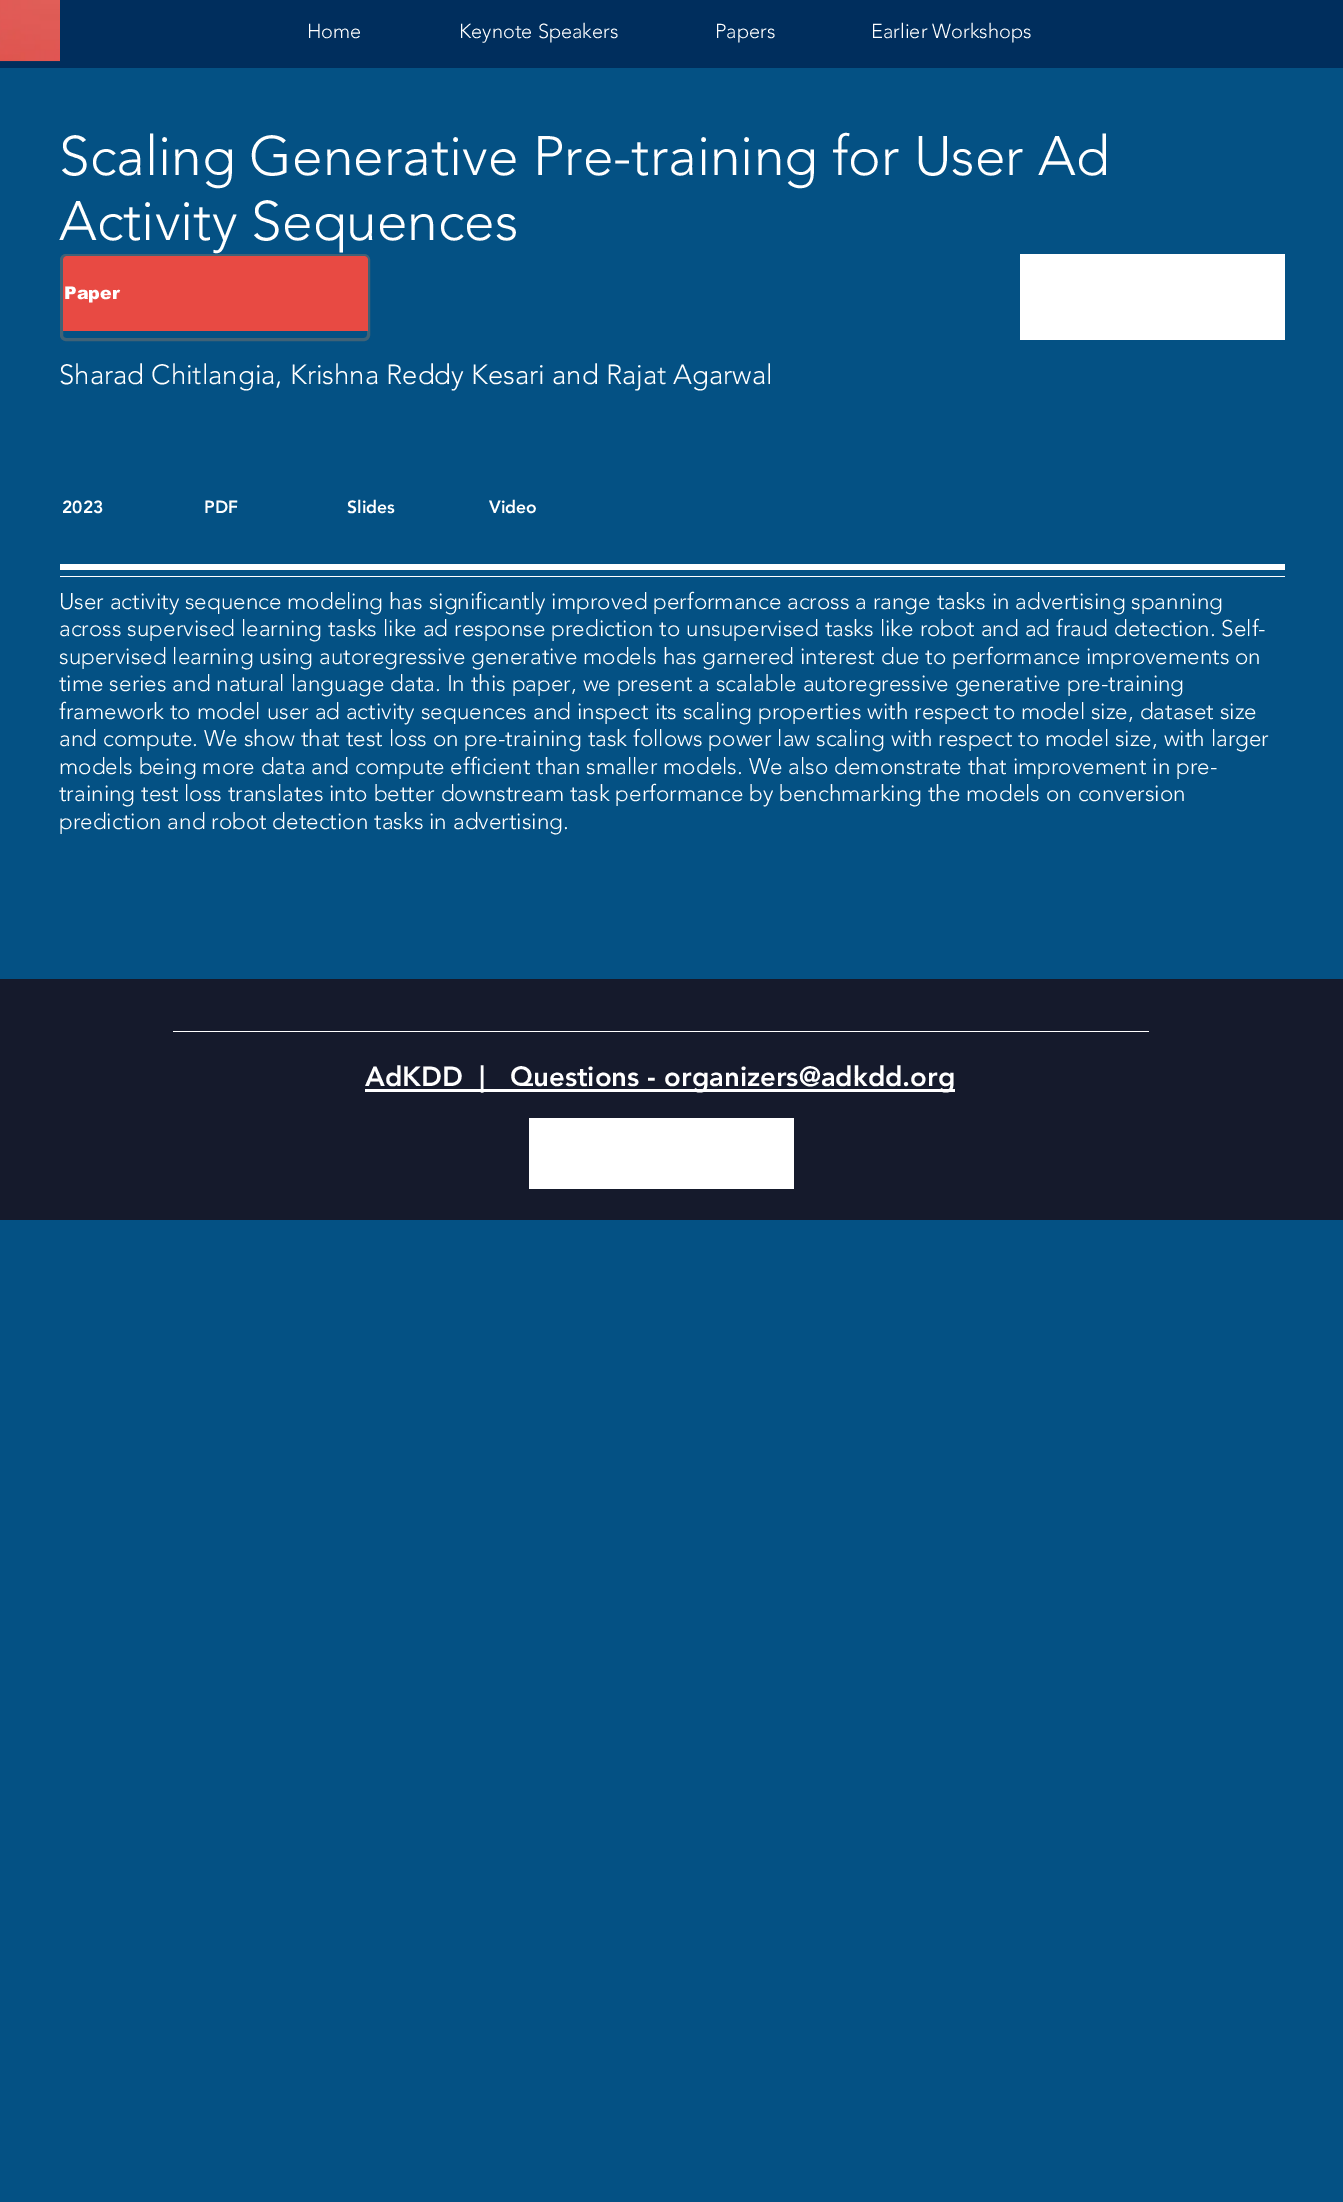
%!PS-Adobe-3.0
%%BoundingBox: 0 0 1343 2202
%%LanguageLevel: 3
%%Pages: 1
%%EndComments
%%BeginProlog
/setink { dup -16 bitshift 255 div exch dup -8 bitshift 255 and 255 div exch 255 and 255 div setrgbcolor } def
/usefont { [ exch dup neg 0 0 3 -1 roll 0 0 ] selectfont } def
/rrect { 5 dict begin { /r /h /w /y /x } { exch def } forall
  x r add y moveto x w add y 2 copy h add r arct x w add y h add x 1 index r arct
  x y h add x y r arct x y 2 copy exch w add exch r arct closepath end } def
/drawimage { 5 dict begin { /h /w /y /x /name } { exch def } forall
  gsave x y translate w h scale
  w h 8 [w 0 0 h 0 0] name (r) file false 3 colorimage grestore end } def
%%EndProlog
%%BeginSetup
<< /PageSize [1343 2202] >> setpagedevice
%%EndSetup
%%Page: 1 1
0 2202 translate 1 -1 scale
4 setmiterlimit
16#045184 setink
0 0 1343 2202 rectfill
16#002E5D setink
0 0 1343 68 rectfill
(img1.raw) 0 0 60 62 drawimage
/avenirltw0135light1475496-Light 20 usefont
16#FFFFFF setink
[
    [(Home) 307 38]
    [(Keynote Speakers) 459 38]
    [(Papers) 715 38]
    [(Earlier Workshops) 871 38]
] { aload pop moveto show } forall
/avenirltw0135light1475496-Light 55 usefont
59 175 moveto (Scaling Generative Pre-training for User Ad) show
59 240 moveto (Activity Sequences) show
16#406277 setink
3 setlinewidth
61.5 255.5 307 84 4.5 rrect stroke
16#E84A43 setink
67 256 moveto 364 256 lineto 366 256 368 258 368 260 curveto 368 331 lineto 63 331 lineto 63 260 lineto 63 258 65 256 67 256 curveto closepath fill
/arial-Black 17.5 usefont
16#FFFFFF setink
64 299 moveto (Paper) show
1020 254 265 86 rectfill
/avenirltw0135light1475496-Light 27.5 usefont
59 384 moveto (Sharad Chitlangia, Krishna Reddy Kesari and Rajat Agarwal) show
/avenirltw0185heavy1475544-Black 17.5 usefont
[
    [(2023) 62 513]
    [(PDF) 204 513]
    [(Slides) 347 513]
    [(Video) 489 513]
] { aload pop moveto show } forall
60 564 1225 6 rectfill
60 576 1225 1 rectfill
/avenirltw0135light1475496-Light 22.5 usefont
[
    [(User activity sequence modeling has significantly improved performance across a range tasks in advertising spanning) 59 609]
    [(across supervised learning tasks like ad response prediction to unsupervised tasks like robot and ad fraud detection. Self-) 59 636]
    [(supervised learning using autoregressive generative models has garnered interest due to performance improvements on) 59 664]
    [(time series and natural language data. In this paper, we present a scalable autoregressive generative pre-training) 59 691]
    [(framework to model user ad activity sequences and inspect its scaling properties with respect to model size, dataset size) 59 719]
    [(and compute. We show that test loss on pre-training task follows power law scaling with respect to model size, with larger) 59 746]
    [(models being more data and compute efficient than smaller models. We also demonstrate that improvement in pre-) 59 774]
    [(training test loss translates into better downstream task performance by benchmarking the models on conversion) 59 801]
    [(prediction and robot detection tasks in advertising.) 59 829]
] { aload pop moveto show } forall
[
    [0 979 1343 241 16#151A2C]
    [173 1031 976 1 16#FFFFFF]
    [365 1089 590 3 16#FFFFFF]
] { aload pop setink rectfill } forall
/avenirltw0185heavy1475544-Black 27.5 usefont
365 1086 moveto (AdKDD  |   Questions - organizers@adkdd.org) show
529 1118 265 71 rectfill
showpage
%%EOF
